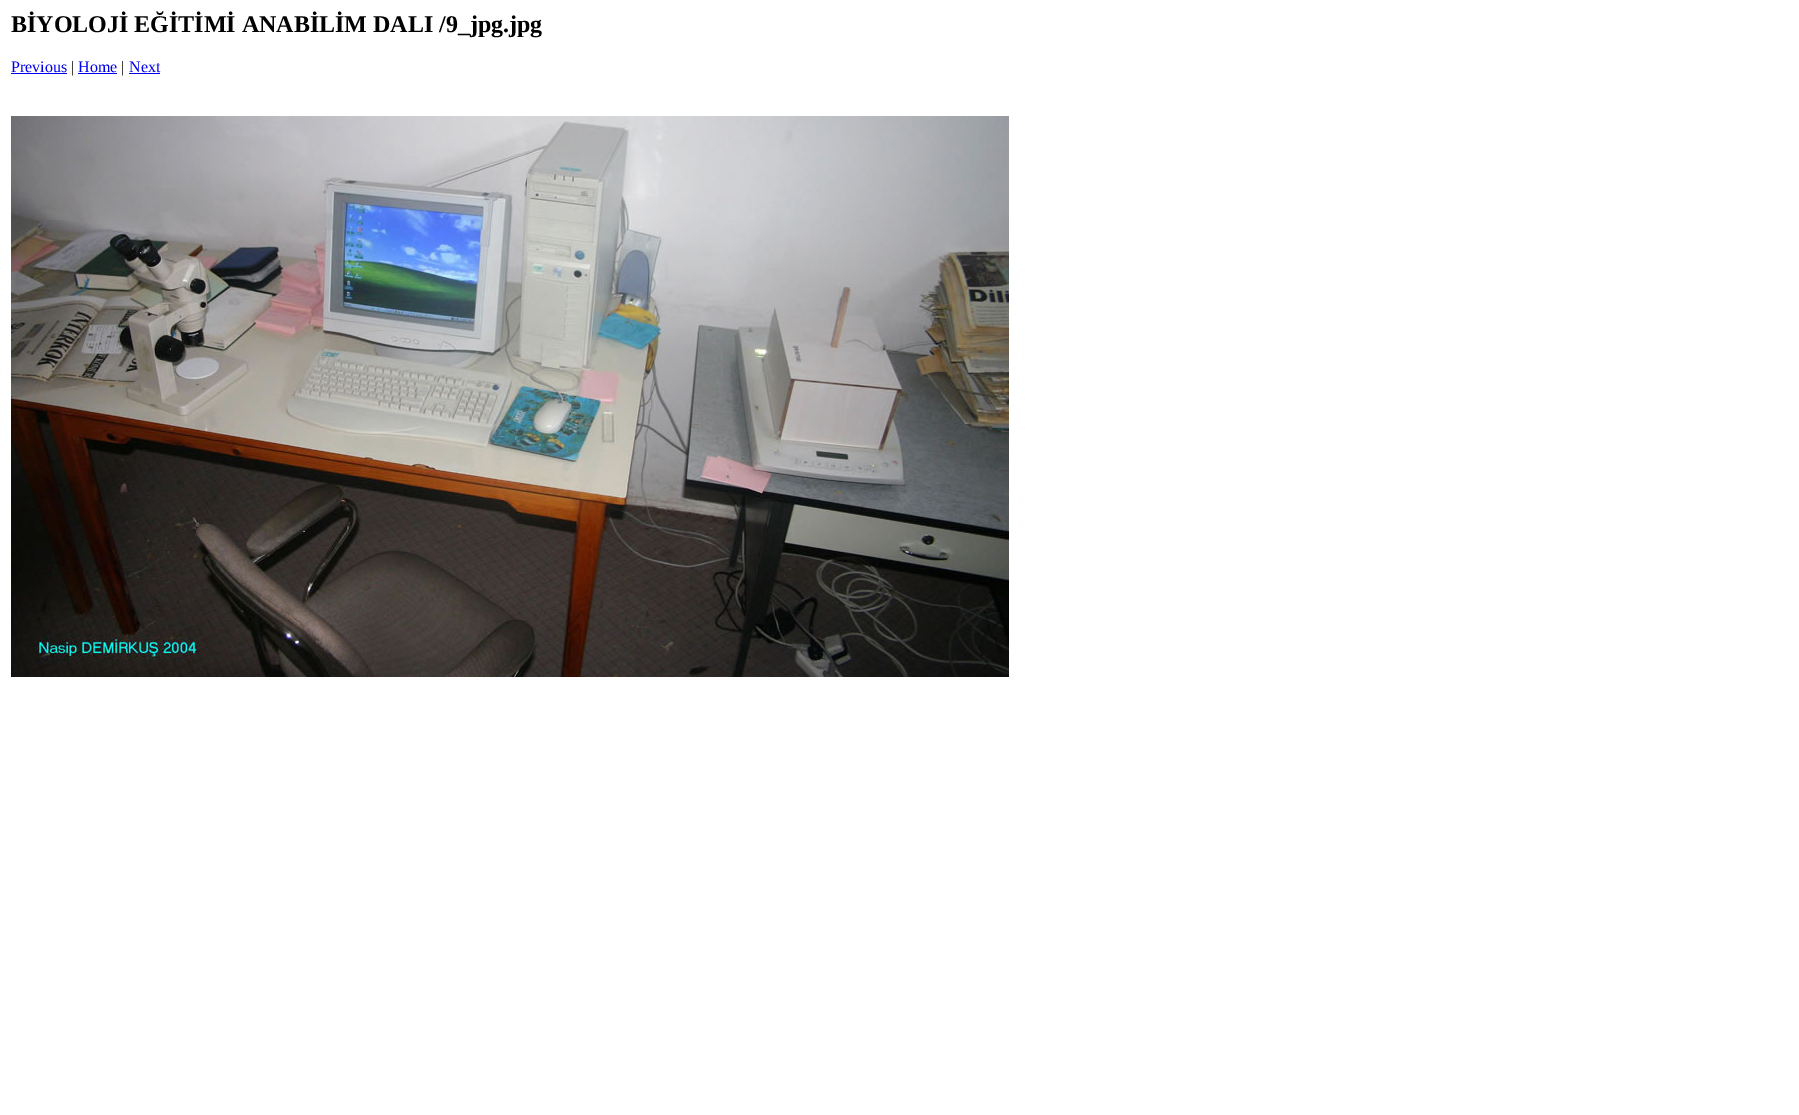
%!PS-Adobe-3.0
%%BoundingBox: 0 0 1799 1115
%%LanguageLevel: 3
%%Pages: 1
%%EndComments
%%BeginProlog
/setink { dup -16 bitshift 255 div exch dup -8 bitshift 255 and 255 div exch 255 and 255 div setrgbcolor } def
/usefont { [ exch dup neg 0 0 3 -1 roll 0 0 ] selectfont } def
/drawimage { 5 dict begin { /h /w /y /x /name } { exch def } forall
  gsave x y translate w h scale
  w h 8 [w 0 0 h 0 0] name (r) file false 3 colorimage grestore end } def
%%EndProlog
%%BeginSetup
<< /PageSize [1799 1115] >> setpagedevice
%%EndSetup
%%Page: 1 1
0 1115 translate 1 -1 scale
4 setmiterlimit
16#FFFFFF setink
0 0 1799 1115 rectfill
/LiberationSerif-Bold 24 usefont
16#000000 setink
11 32 moveto (BİYOLOJİ EĞİTİMİ ANABİLİM DALI /9_jpg.jpg) show
/LiberationSerif-Regular 16 usefont
16#0000EE setink
11 72 moveto (Previous) show
11 73 56 1 rectfill
16#000000 setink
71 72 moveto (|) show
16#0000EE setink
78 72 moveto (Home) show
78 73 39 1 rectfill
16#000000 setink
121 72 moveto (|) show
16#0000EE setink
129 72 moveto (Next) show
129 73 31 1 rectfill
(img1.raw) 11 116 998 561 drawimage
showpage
%%EOF
